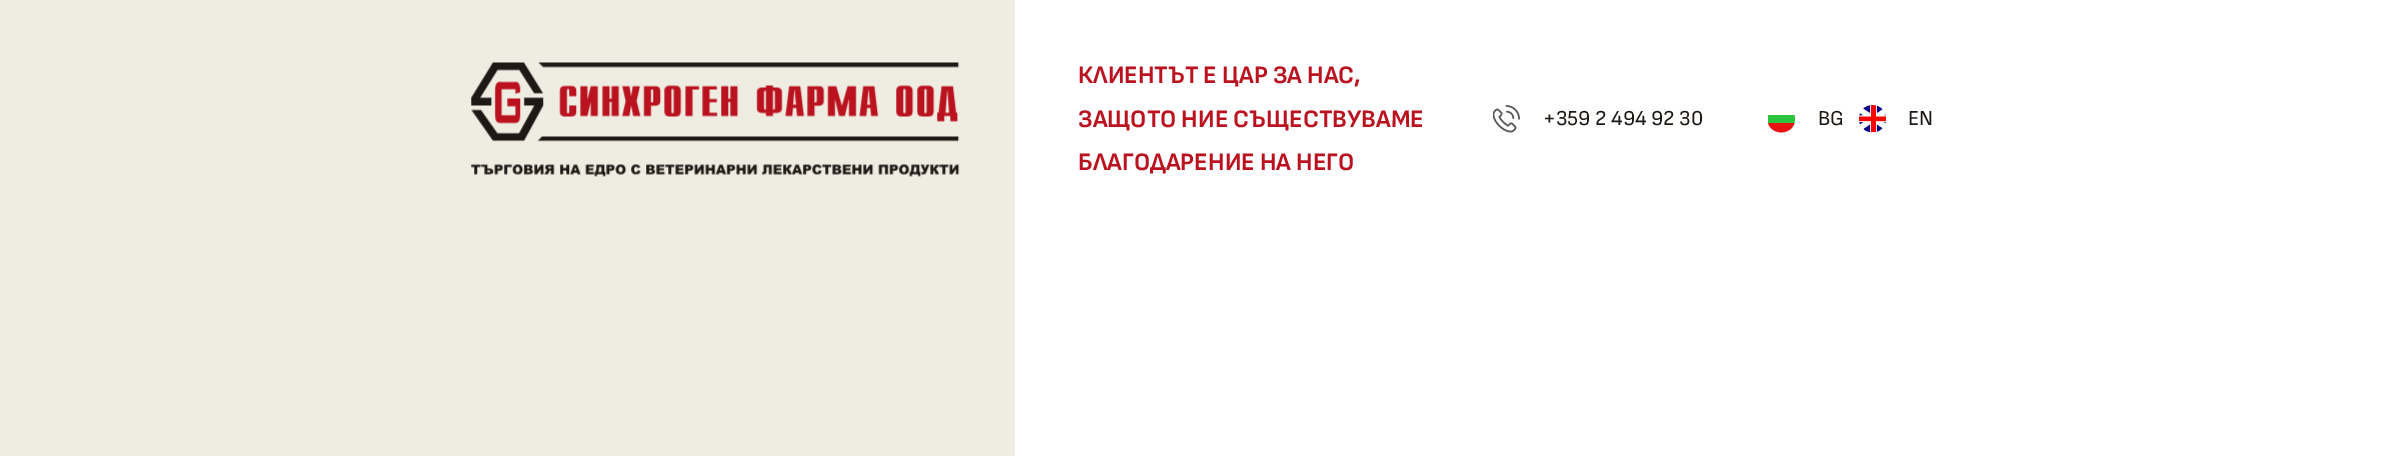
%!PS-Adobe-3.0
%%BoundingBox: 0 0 2405 456
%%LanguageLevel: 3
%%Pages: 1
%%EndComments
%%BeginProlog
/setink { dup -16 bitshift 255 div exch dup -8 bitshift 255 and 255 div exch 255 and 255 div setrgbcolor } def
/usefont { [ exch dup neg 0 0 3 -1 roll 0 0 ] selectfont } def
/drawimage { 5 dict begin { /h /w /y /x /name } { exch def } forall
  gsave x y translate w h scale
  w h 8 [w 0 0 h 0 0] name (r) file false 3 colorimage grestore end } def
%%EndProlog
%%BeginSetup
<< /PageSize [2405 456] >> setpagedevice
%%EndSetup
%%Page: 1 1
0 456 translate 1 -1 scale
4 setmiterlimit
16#EFECE2 setink
0 0 2405 456 rectfill
16#FFFFFF setink
1015 0 1390 456 rectfill
(img1.raw) 471 62 489 115 drawimage
/SofiaSans-Bold 25 usefont
16#BA121F setink
[
    [(КЛИЕНТЪТ Е ЦАР ЗА НАС,) 1078 83]
    [(ЗАЩОТО НИЕ СЪЩEСТВУВАМЕ) 1078 127]
    [(БЛАГОДАРЕНИЕ НА НЕГО) 1078 170]
] { aload pop moveto show } forall
(img2.raw) 1493 105 27 28 drawimage
/SofiaSans-Regular 21.25 usefont
16#1E1915 setink
1543 125 moveto (+359 2 494 92 30) show
16#2BC43C setink
1768 115 moveto 1794.5 115 lineto 1795 117.5 1795 120.5 1794.5 123 curveto 1768 123 lineto closepath fill
16#E81212 setink
1794.5 123 moveto 1790.5 135.5 1772 135.5 1768 123 curveto closepath fill
16#1E1915 setink
1818 125 moveto (BG) show
(img3.raw) 1859 105 27 28 drawimage
1908 125 moveto (EN) show
showpage
%%EOF
